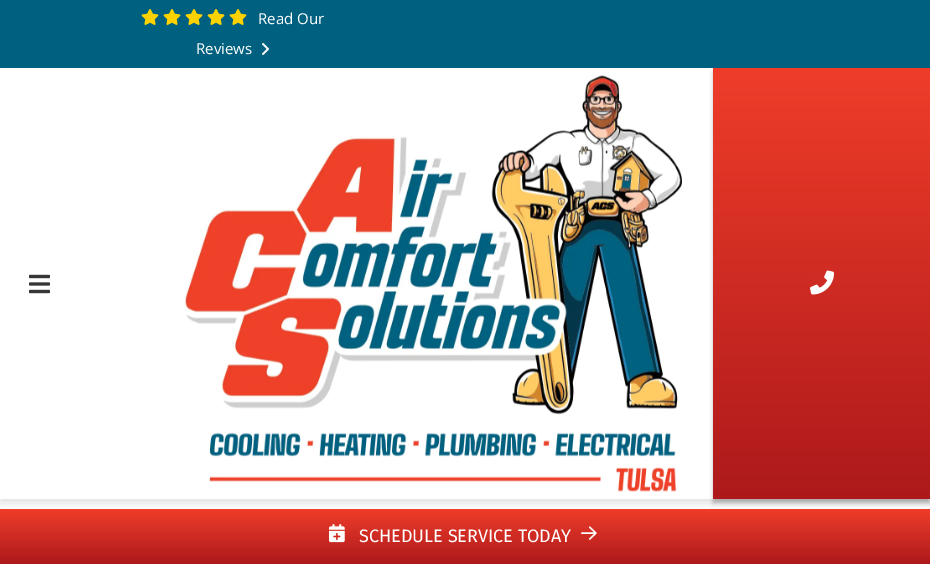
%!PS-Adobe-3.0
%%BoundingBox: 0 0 930 564
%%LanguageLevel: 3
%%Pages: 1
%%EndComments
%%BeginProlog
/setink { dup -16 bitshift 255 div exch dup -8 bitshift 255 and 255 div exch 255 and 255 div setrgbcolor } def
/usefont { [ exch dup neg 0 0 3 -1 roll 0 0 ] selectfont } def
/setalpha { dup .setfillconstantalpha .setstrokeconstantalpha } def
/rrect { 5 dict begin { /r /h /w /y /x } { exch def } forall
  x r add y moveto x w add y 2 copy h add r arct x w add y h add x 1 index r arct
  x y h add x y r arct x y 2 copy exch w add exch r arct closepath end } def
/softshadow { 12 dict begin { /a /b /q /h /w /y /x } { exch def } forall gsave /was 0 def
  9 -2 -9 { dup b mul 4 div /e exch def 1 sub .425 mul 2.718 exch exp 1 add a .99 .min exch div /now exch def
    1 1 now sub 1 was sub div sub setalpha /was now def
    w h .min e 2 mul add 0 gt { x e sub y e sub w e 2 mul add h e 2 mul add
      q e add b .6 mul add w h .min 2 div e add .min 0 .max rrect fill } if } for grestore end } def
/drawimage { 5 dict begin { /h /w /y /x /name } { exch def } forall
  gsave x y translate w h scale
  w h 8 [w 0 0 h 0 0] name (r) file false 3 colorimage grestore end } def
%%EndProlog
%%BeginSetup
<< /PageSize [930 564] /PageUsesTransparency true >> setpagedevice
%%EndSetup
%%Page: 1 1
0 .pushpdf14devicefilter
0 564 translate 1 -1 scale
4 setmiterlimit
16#FFFFFF setink
0 0 930 564 rectfill
16#000000 setink
0 4 930 499 0 5 0.12 softshadow
16#FFFFFF setink
0 68 713 431 rectfill
16#00607F setink
0 0 930 68 rectfill
(img1.raw) 141 9 18 16 drawimage
(img1.raw) 163 9 18 16 drawimage
(img1.raw) 185 9 18 16 drawimage
(img1.raw) 207 9 18 16 drawimage
(img1.raw) 229 9 18 16 drawimage
/OpenSans-Regular 15 usefont
16#FFFFFF setink
258 24 moveto (Read Our) show
196 54 moveto (Reviews) show
(img2.raw) 262 43 7 12 drawimage
(img3.raw) 29 274 21 20 drawimage
(img4.raw) 185 75 497 417 drawimage
16#000000 setink
713 72 217 431 0 2 0.25 softshadow
gsave 713 68 moveto 930 68 lineto 930 499 lineto 713 499 lineto closepath clip newpath
<< /ShadingType 2 /ColorSpace /DeviceRGB /Coords [822 499 822 68] /Extend [true true] /Function << /FunctionType 2 /Domain [0 1] /C0 [0.678 0.098 0.106] /C1 [0.937 0.239 0.165] /N 1 >> >> shfill grestore
(img5.raw) 810 270 24 25 drawimage
gsave 0 509 moveto 930 509 lineto 930 564 lineto 0 564 lineto closepath clip newpath
<< /ShadingType 2 /ColorSpace /DeviceRGB /Coords [465 564 465 509] /Extend [true true] /Function << /FunctionType 2 /Domain [0 1] /C0 [0.678 0.098 0.106] /C1 [0.937 0.239 0.165] /N 1 >> >> shfill grestore
(img6.raw) 329 524 16 19 drawimage
/FiraSans-Regular 18 usefont
16#FFFFFF setink
359 542 moveto (SCHEDULE SERVICE TODAY) show
(img7.raw) 581 526 16 14 drawimage
.poppdf14devicefilter showpage
%%EOF
